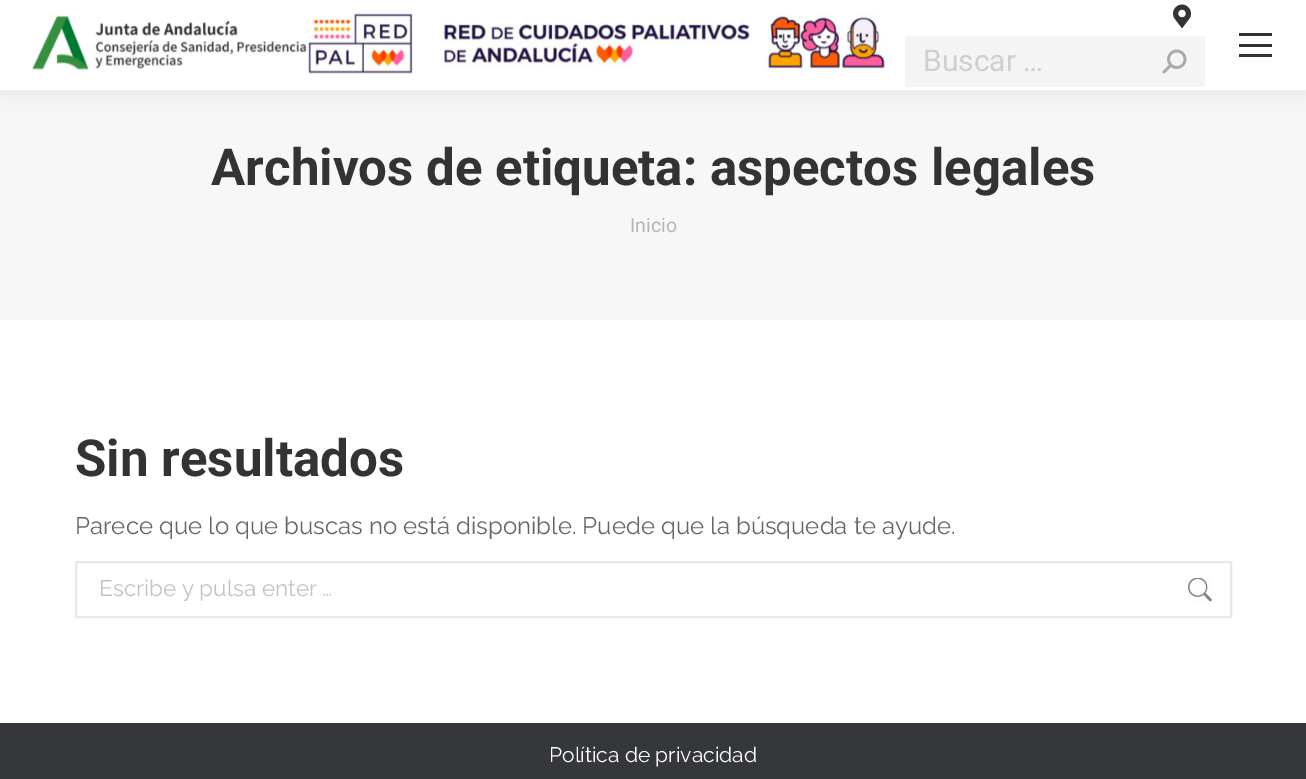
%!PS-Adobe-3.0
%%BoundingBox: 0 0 1306 779
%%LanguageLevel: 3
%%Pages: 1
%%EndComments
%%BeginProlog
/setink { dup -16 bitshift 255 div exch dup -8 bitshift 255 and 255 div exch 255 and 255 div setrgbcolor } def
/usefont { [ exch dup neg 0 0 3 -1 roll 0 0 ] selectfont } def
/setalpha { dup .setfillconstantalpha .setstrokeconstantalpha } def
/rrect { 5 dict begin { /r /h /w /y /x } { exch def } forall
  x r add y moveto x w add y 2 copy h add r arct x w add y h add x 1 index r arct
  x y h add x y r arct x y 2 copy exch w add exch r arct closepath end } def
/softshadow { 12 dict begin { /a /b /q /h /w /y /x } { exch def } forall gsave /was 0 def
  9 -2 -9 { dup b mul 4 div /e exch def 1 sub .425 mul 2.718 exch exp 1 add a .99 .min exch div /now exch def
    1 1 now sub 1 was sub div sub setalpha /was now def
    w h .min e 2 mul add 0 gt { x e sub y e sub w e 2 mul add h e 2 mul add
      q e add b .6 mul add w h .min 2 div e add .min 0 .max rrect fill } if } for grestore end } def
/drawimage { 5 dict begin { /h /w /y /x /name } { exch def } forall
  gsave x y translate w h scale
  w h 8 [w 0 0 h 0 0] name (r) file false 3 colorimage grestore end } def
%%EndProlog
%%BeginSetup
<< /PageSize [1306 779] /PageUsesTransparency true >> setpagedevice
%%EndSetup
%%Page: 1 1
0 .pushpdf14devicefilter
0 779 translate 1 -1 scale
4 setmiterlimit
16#FFFFFF setink
0 0 1306 779 rectfill
16#F7F7F7 setink
0 90 1306 230 rectfill
16#000000 setink
-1 -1 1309 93 0 11 0.07 softshadow
16#FFFFFF setink
0 0 1306 90 rectfill
(img1.raw) 32 13 854 62 drawimage
[
    [1239 33 33 3 16#333333]
    [1239 44 33 3 16#333333]
    [1239 54 33 3 16#333333]
] { aload pop setink rectfill } forall
(img2.raw) 1173 4 18 25 drawimage
16#F4F4F4 setink
905 36 300 51 rectfill
/Roboto-Regular 30 usefont
16#CFCFCF setink
923 71 moveto (Buscar …) show
(img3.raw) 1162 49 25 25 drawimage
/Roboto-Bold 51 usefont
16#333333 setink
211 185 moveto (Archivos de etiqueta: aspectos legales) show
/Roboto-Regular 19.5 usefont
16#B4B5BB setink
630 232 moveto (Inicio) show
/Roboto-Bold 51 usefont
16#333333 setink
75 476 moveto (Sin resultados) show
/Raleway-Regular 24 usefont
16#666666 setink
75 534 moveto (Parece que lo que buscas no está disponible. Puede que la búsqueda te ayude.) show
16#E8E8E8 setink
2 setlinewidth
76 562 1155 55 rectstroke
/Raleway-Regular 22.5 usefont
16#C1C2C5 setink
99 596 moveto (Escribe y pulsa enter …) show
(img4.raw) 1188 578 24 24 drawimage
16#35373B setink
0 723 1306 56 rectfill
/Raleway-Regular 21 usefont
16#FFFFFF setink
549 762 moveto (Política de privacidad) show
.poppdf14devicefilter showpage
%%EOF
